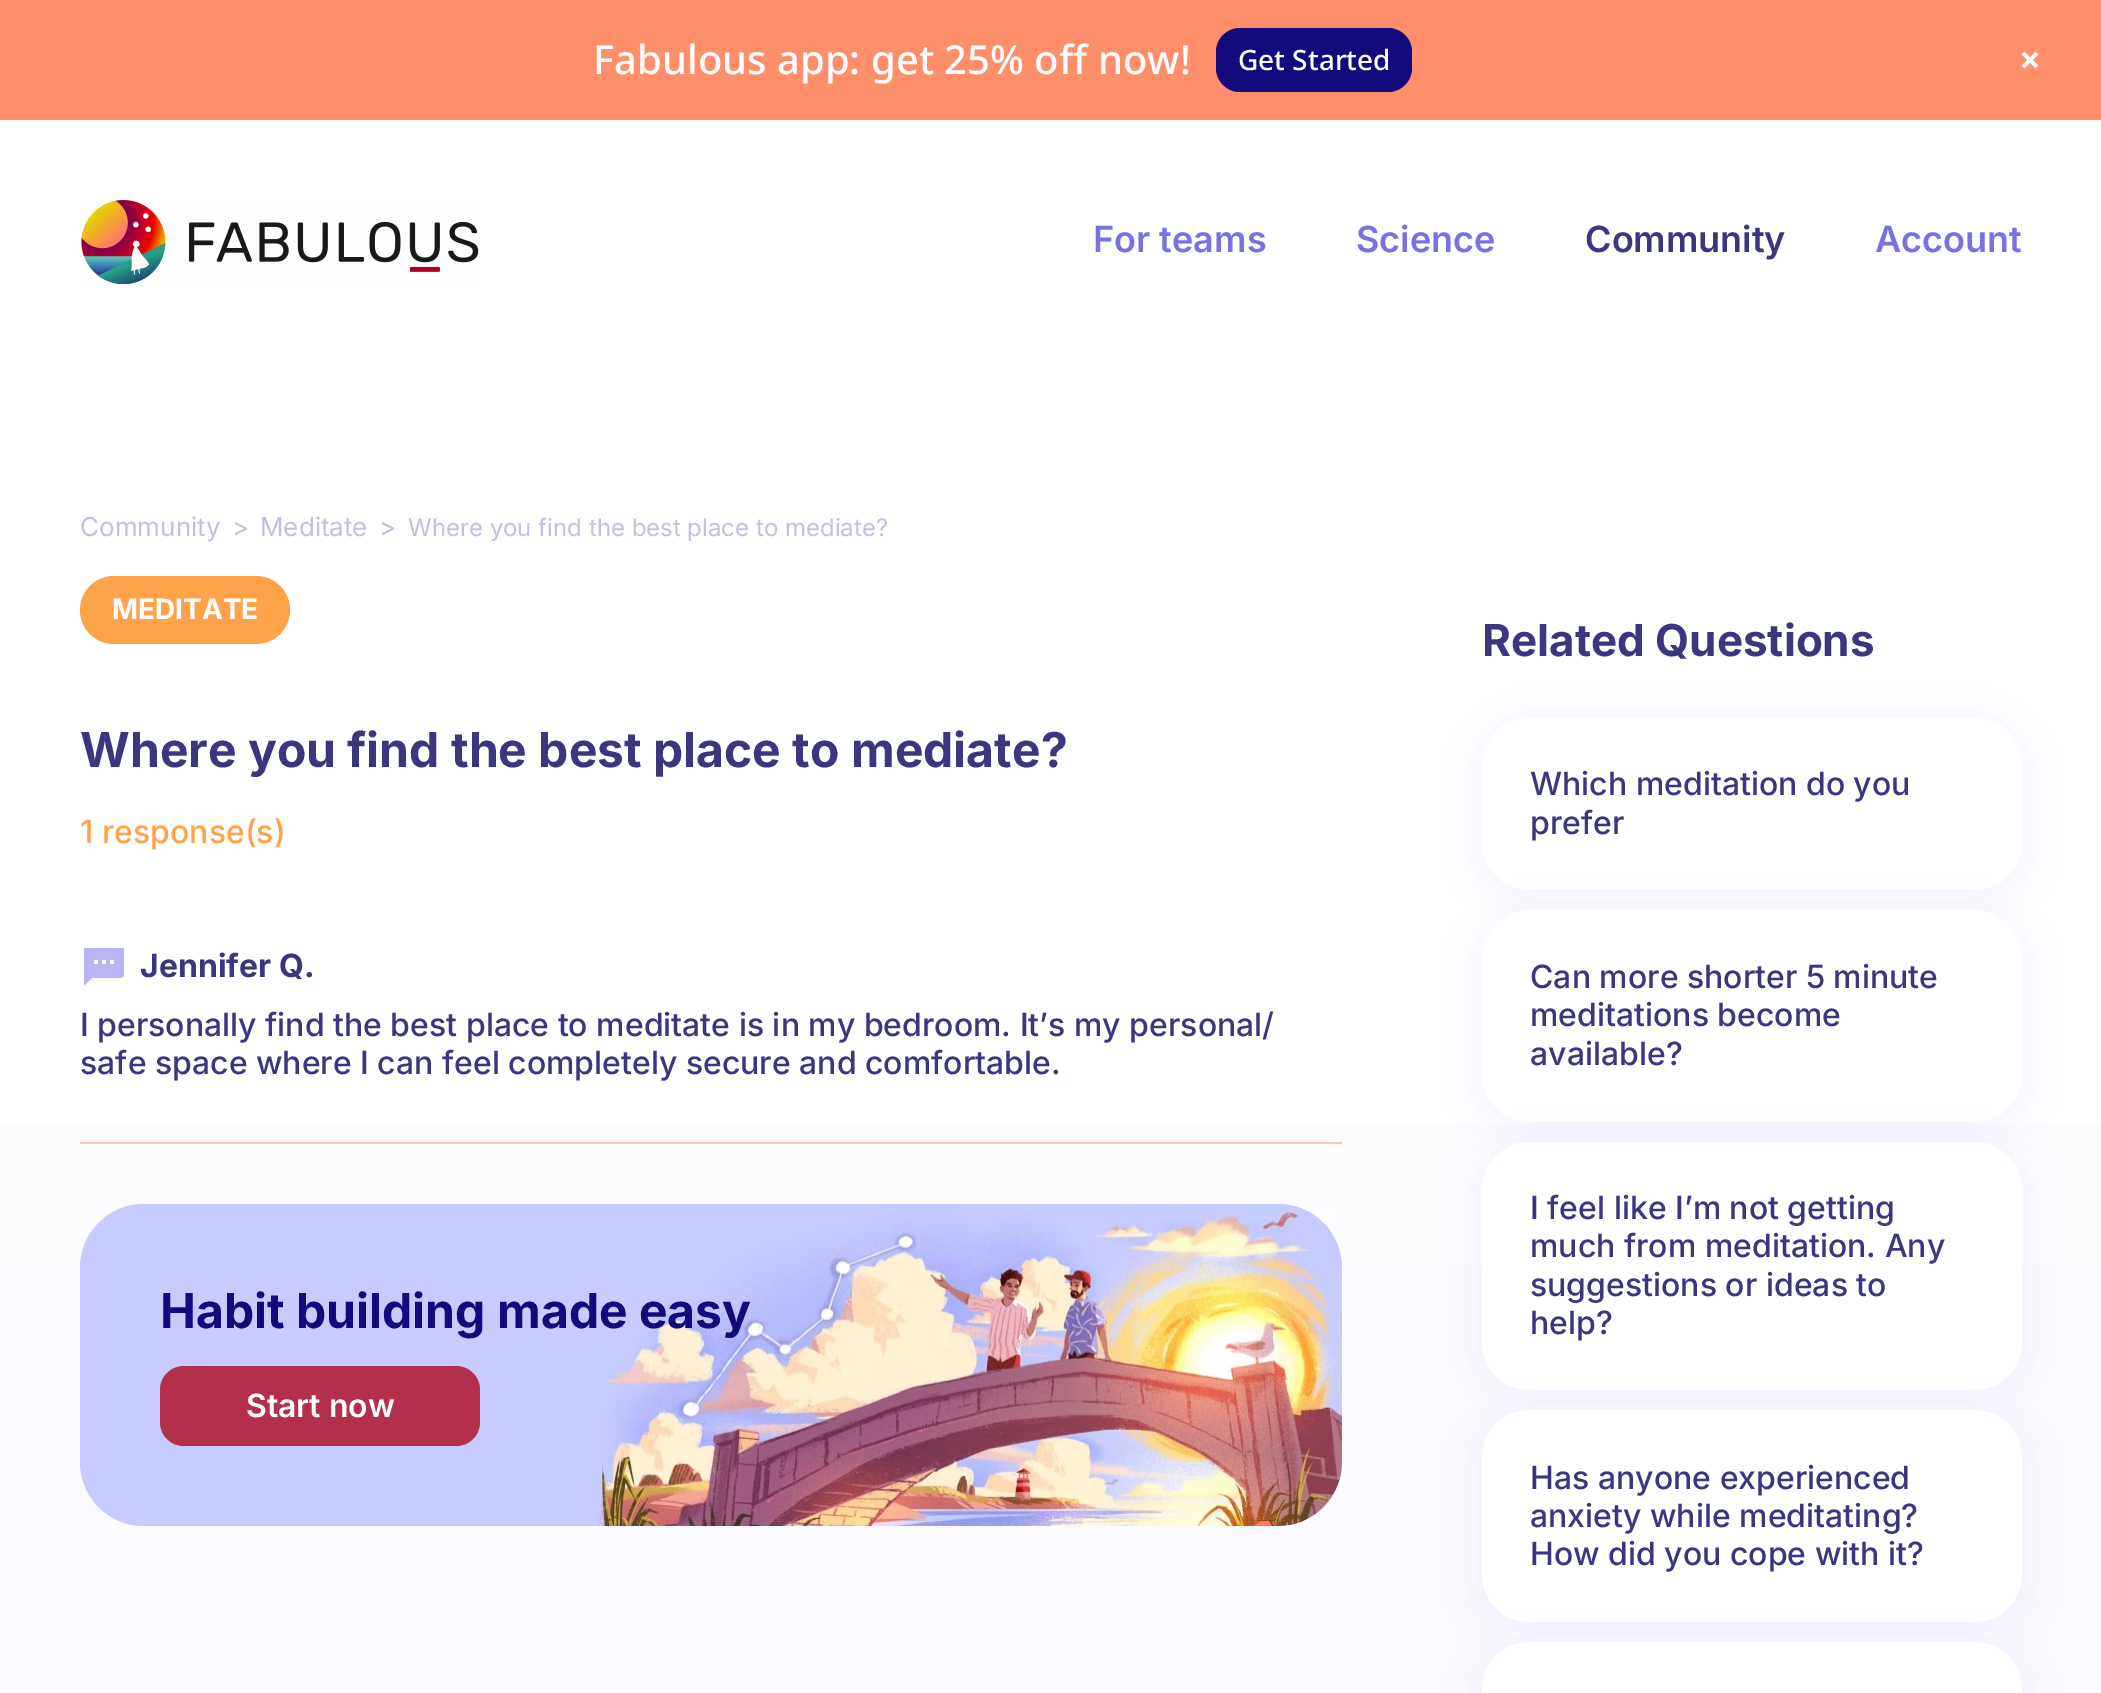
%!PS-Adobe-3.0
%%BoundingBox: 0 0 2101 1693
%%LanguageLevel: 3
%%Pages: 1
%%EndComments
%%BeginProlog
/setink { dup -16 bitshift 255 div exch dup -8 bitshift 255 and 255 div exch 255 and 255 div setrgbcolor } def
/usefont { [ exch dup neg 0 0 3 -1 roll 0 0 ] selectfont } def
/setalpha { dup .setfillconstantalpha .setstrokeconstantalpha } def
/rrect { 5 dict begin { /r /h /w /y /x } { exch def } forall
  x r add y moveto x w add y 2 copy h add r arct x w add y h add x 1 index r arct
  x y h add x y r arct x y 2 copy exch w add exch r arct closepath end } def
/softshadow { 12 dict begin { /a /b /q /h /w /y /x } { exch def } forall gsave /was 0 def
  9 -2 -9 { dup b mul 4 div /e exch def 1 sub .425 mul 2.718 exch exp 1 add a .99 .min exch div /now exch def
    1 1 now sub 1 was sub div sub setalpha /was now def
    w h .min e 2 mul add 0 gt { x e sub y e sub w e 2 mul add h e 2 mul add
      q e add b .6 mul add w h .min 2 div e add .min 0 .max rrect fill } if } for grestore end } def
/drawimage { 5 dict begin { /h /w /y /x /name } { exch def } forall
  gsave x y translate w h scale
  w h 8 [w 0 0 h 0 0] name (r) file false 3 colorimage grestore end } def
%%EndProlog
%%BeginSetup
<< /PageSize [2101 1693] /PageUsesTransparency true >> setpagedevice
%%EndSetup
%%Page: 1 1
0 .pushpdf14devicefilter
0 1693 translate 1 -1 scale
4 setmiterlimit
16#FFFFFF setink
0 0 2101 1693 rectfill
16#FF8F6B setink
0 0 2101 120 rectfill
/NotoSans-Medium 40 usefont
16#FFFFFF setink
593 74 moveto (Fabulous app: get 25% off now!) show
16#130A7E setink
1216 28 196 64 24 rrect fill
/NotoSans-Medium 28 usefont
16#FFFFFF setink
1238 70 moveto (Get Started) show
(img1.raw) 2021 51 18 18 drawimage
(img2.raw) 81 200 398 84 drawimage
/Inter-SemiBold 36 usefont
16#7871E4 setink
1093 252 moveto (For teams) show
1356 252 moveto (Science) show
16#3C3680 setink
1585 252 moveto (Community) show
16#7871E4 setink
1875 252 moveto (Account) show
gsave 0 1125 moveto 2101 1125 lineto 2101 1693 lineto 0 1693 lineto closepath clip newpath
<< /ShadingType 2 /ColorSpace /DeviceRGB /Coords [1051 464 1051 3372] /Extend [true true] /Function << /FunctionType 2 /Domain [0 1] /C0 [1 1 1] /C1 [0.965 0.957 1] /N 1 >> >> shfill grestore
/Inter-Regular 26 usefont
16#C3C1DA setink
[
    [(Community) 80 536]
    [(>) 232 536]
    [(Meditate) 260 536]
    [(>) 379 536]
] { aload pop moveto show } forall
/Inter-Regular 24 usefont
408 536 moveto (Where you find the best place to mediate?) show
16#FFA34A setink
80 576 210 68 34 rrect fill
/Inter-Bold 28 usefont
16#FFFFFF setink
112 619 moveto (MEDITATE) show
/Inter-Bold 48 usefont
16#3C3680 setink
80 767 moveto (Where you find the best place to mediate?) show
/Inter-Medium 32 usefont
16#FFA34A setink
80 843 moveto (1 response\(s\)) show
(img3.raw) 84 948 40 38 drawimage
/Inter-Bold 32 usefont
16#3C3680 setink
140 977 moveto (Jennifer Q.) show
16#FFC9AA setink
80 1142 1262 2 rectfill
/Inter-Medium 32 usefont
16#3C3680 setink
80 1036 moveto (I personally find the best place to meditate is in my bedroom. It’s my personal/) show
80 1074 moveto (safe space where I can feel completely secure and comfortable.) show
16#C6CCFF setink
80 1204 1262 322 64 rrect fill
(img4.raw) 596 1204 746 322 drawimage
/Inter-Bold 48 usefont
16#130A7E setink
160 1328 moveto (Habit building made easy) show
16#B42F4A setink
160 1366 320 80 24 rrect fill
/Inter-SemiBold 32 usefont
16#FFFFFF setink
246 1417 moveto (Start now) show
/Inter-Bold 44 usefont
16#3C3680 setink
1482 656 moveto (Related Questions) show
16#2736C3 setink
1482 726 540 172 48 24 0.06 softshadow
16#FFFFFF setink
1482 718 540 172 48 rrect fill
/Inter-Medium 32 usefont
16#3C3680 setink
1530 795 moveto (Which meditation do you) show
1530 834 moveto (prefer) show
16#2736C3 setink
1482 918 540 212 48 24 0.06 softshadow
16#FFFFFF setink
1482 910 540 212 48 rrect fill
16#3C3680 setink
[
    [(Can more shorter 5 minute) 1530 988]
    [(meditations become) 1530 1026]
    [(available?) 1530 1065]
] { aload pop moveto show } forall
16#2736C3 setink
1482 1150 540 248 48 24 0.06 softshadow
16#FFFFFF setink
1482 1142 540 248 48 rrect fill
16#3C3680 setink
[
    [(I feel like I’m not getting) 1530 1219]
    [(much from meditation. Any) 1530 1257]
    [(suggestions or ideas to) 1530 1296]
    [(help?) 1530 1334]
] { aload pop moveto show } forall
16#2736C3 setink
1482 1418 540 212 48 24 0.06 softshadow
16#FFFFFF setink
1482 1410 540 212 48 rrect fill
16#3C3680 setink
[
    [(Has anyone experienced) 1530 1489]
    [(anxiety while meditating?) 1530 1527]
    [(How did you cope with it?) 1530 1565]
] { aload pop moveto show } forall
16#2736C3 setink
1482 1650 540 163 48 24 0.06 softshadow
16#FFFFFF setink
1482 1642 540 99 48 rrect fill
.poppdf14devicefilter showpage
%%EOF
